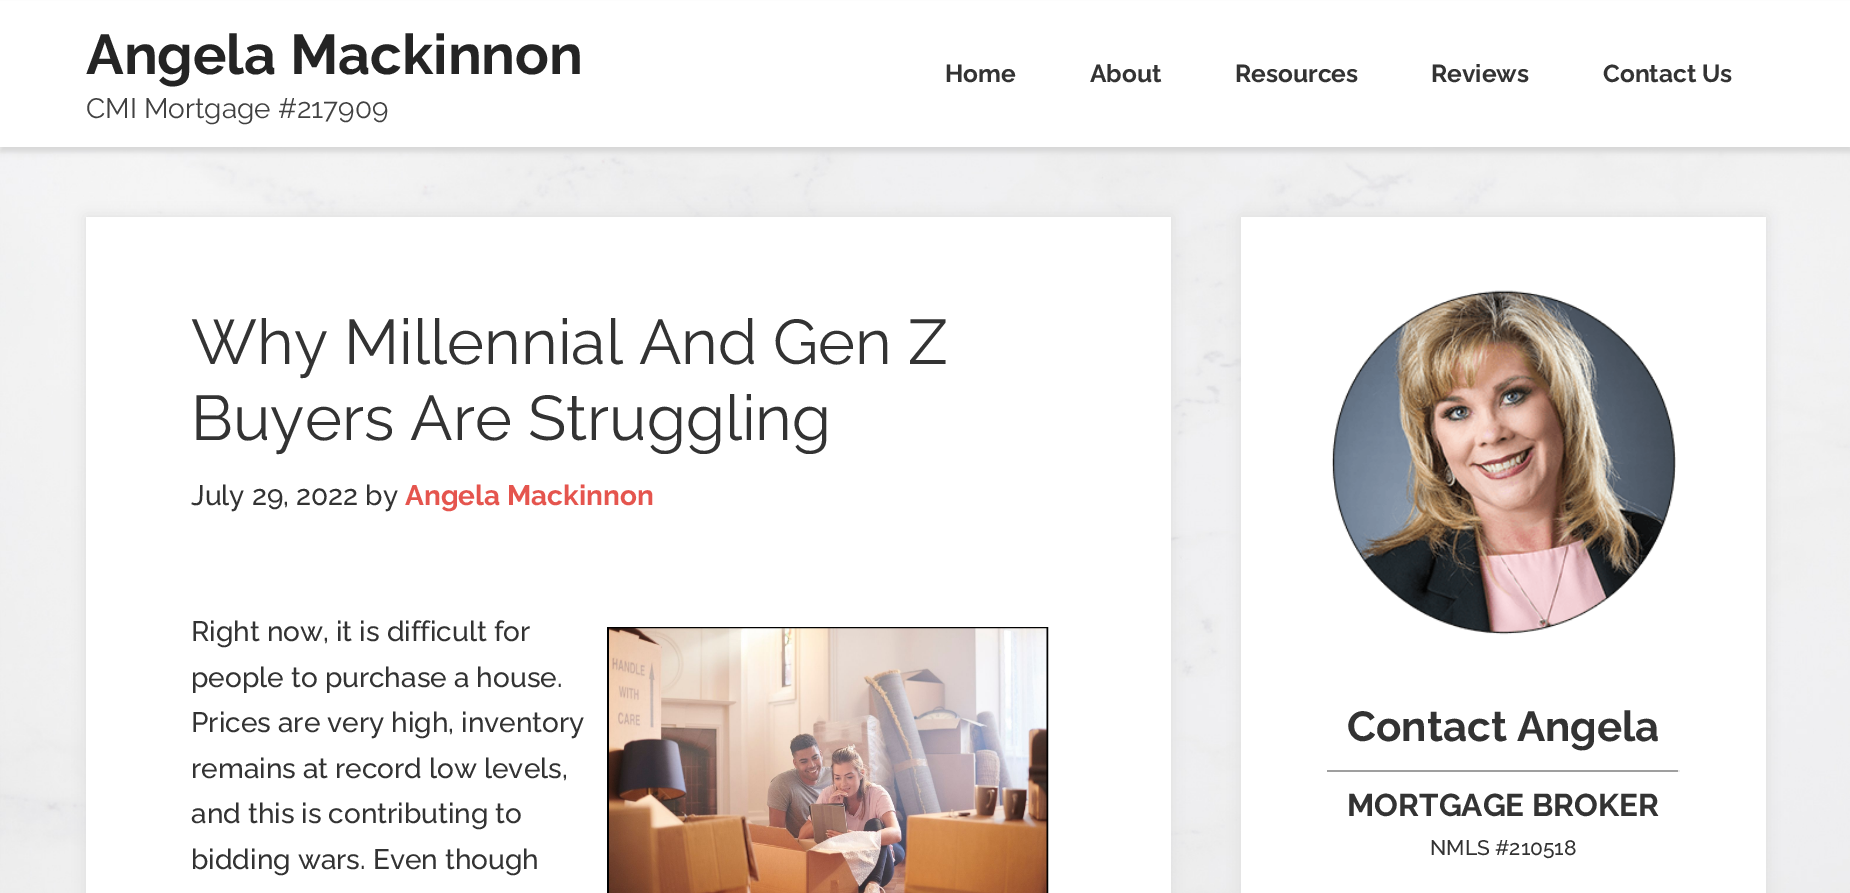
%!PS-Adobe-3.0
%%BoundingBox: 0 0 1850 893
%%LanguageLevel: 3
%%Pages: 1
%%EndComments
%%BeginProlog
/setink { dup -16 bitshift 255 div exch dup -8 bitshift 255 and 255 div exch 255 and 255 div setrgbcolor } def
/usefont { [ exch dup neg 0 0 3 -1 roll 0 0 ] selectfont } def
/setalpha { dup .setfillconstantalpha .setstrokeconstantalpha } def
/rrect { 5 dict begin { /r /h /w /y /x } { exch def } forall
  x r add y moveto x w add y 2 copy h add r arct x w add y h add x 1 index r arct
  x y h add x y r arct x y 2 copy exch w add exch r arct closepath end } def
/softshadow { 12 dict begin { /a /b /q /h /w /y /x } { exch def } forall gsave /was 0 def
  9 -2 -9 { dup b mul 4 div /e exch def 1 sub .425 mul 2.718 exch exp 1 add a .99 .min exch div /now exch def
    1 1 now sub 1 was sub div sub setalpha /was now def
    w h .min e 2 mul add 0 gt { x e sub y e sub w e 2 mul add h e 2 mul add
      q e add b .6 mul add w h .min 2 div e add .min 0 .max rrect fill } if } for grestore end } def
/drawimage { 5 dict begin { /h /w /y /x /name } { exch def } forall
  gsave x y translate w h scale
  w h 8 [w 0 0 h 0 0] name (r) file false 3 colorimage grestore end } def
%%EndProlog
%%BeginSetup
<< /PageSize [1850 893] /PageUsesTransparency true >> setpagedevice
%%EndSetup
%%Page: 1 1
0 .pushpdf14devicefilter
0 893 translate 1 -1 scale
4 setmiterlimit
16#FFFFFF setink
0 0 1850 893 rectfill
(img1.raw) 0 147 1850 746 drawimage
16#D7D7D7 setink
0 5 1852 147 0 2.5 1 softshadow
16#FFFFFF setink
0 1 1850 146 rectfill
/Raleway-Bold 56 usefont
16#242424 setink
86 74 moveto (Angela Mackinnon) show
/Raleway-Regular 28 usefont
16#414141 setink
86 118 moveto (CMI Mortgage #217909) show
/Raleway-Bold 24.5 usefont
16#333333 setink
[
    [(Home) 945 82]
    [(About) 1090 82]
    [(Resources) 1235 82]
    [(Reviews) 1431 82]
    [(Contact Us) 1603 82]
] { aload pop moveto show } forall
16#DDDDDD setink
86 217 1085 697 0 7 1 softshadow
16#FFFFFF setink
86 217 1085 676 rectfill
/Raleway-Regular 63 usefont
16#333333 setink
191 364 moveto (Why Millennial And Gen Z) show
191 440 moveto (Buyers Are Struggling) show
/Raleway-Medium 28 usefont
191 505 moveto (July 29, 2022 by) show
/Raleway-Bold 28 usefont
16#E5554E setink
405 505 moveto (Angela Mackinnon) show
/Raleway-Medium 28 usefont
16#333333 setink
191 641 moveto (Right now, it is difficult for) show
16#000000 setink
2 setlinewidth
608 628 439 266 rectstroke
(img2.raw) 609 628 438 265 drawimage
16#333333 setink
[
    [(people to purchase a house.) 191 687]
    [(Prices are very high, inventory) 191 732]
    [(remains at record low levels,) 191 778]
    [(and this is contributing to) 191 823]
    [(bidding wars. Even though) 191 869]
] { aload pop moveto show } forall
16#DDDDDD setink
1241 217 525 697 0 7 1 softshadow
16#FFFFFF setink
1241 217 525 676 rectfill
(img3.raw) 1332 290 344 345 drawimage
/Raleway-Bold 42 usefont
16#333333 setink
1347 741 moveto (Contact Angela) show
16#9F9F9F setink
1327 770 353 2 rectfill
16#EEEEEE setink
1678 770 2 2 rectfill
/Raleway-Bold 31.5 usefont
16#333333 setink
1347 816 moveto (MORTGAGE BROKER) show
/Raleway-Medium 21 usefont
1430 855 moveto (NMLS #210518) show
.poppdf14devicefilter showpage
%%EOF
